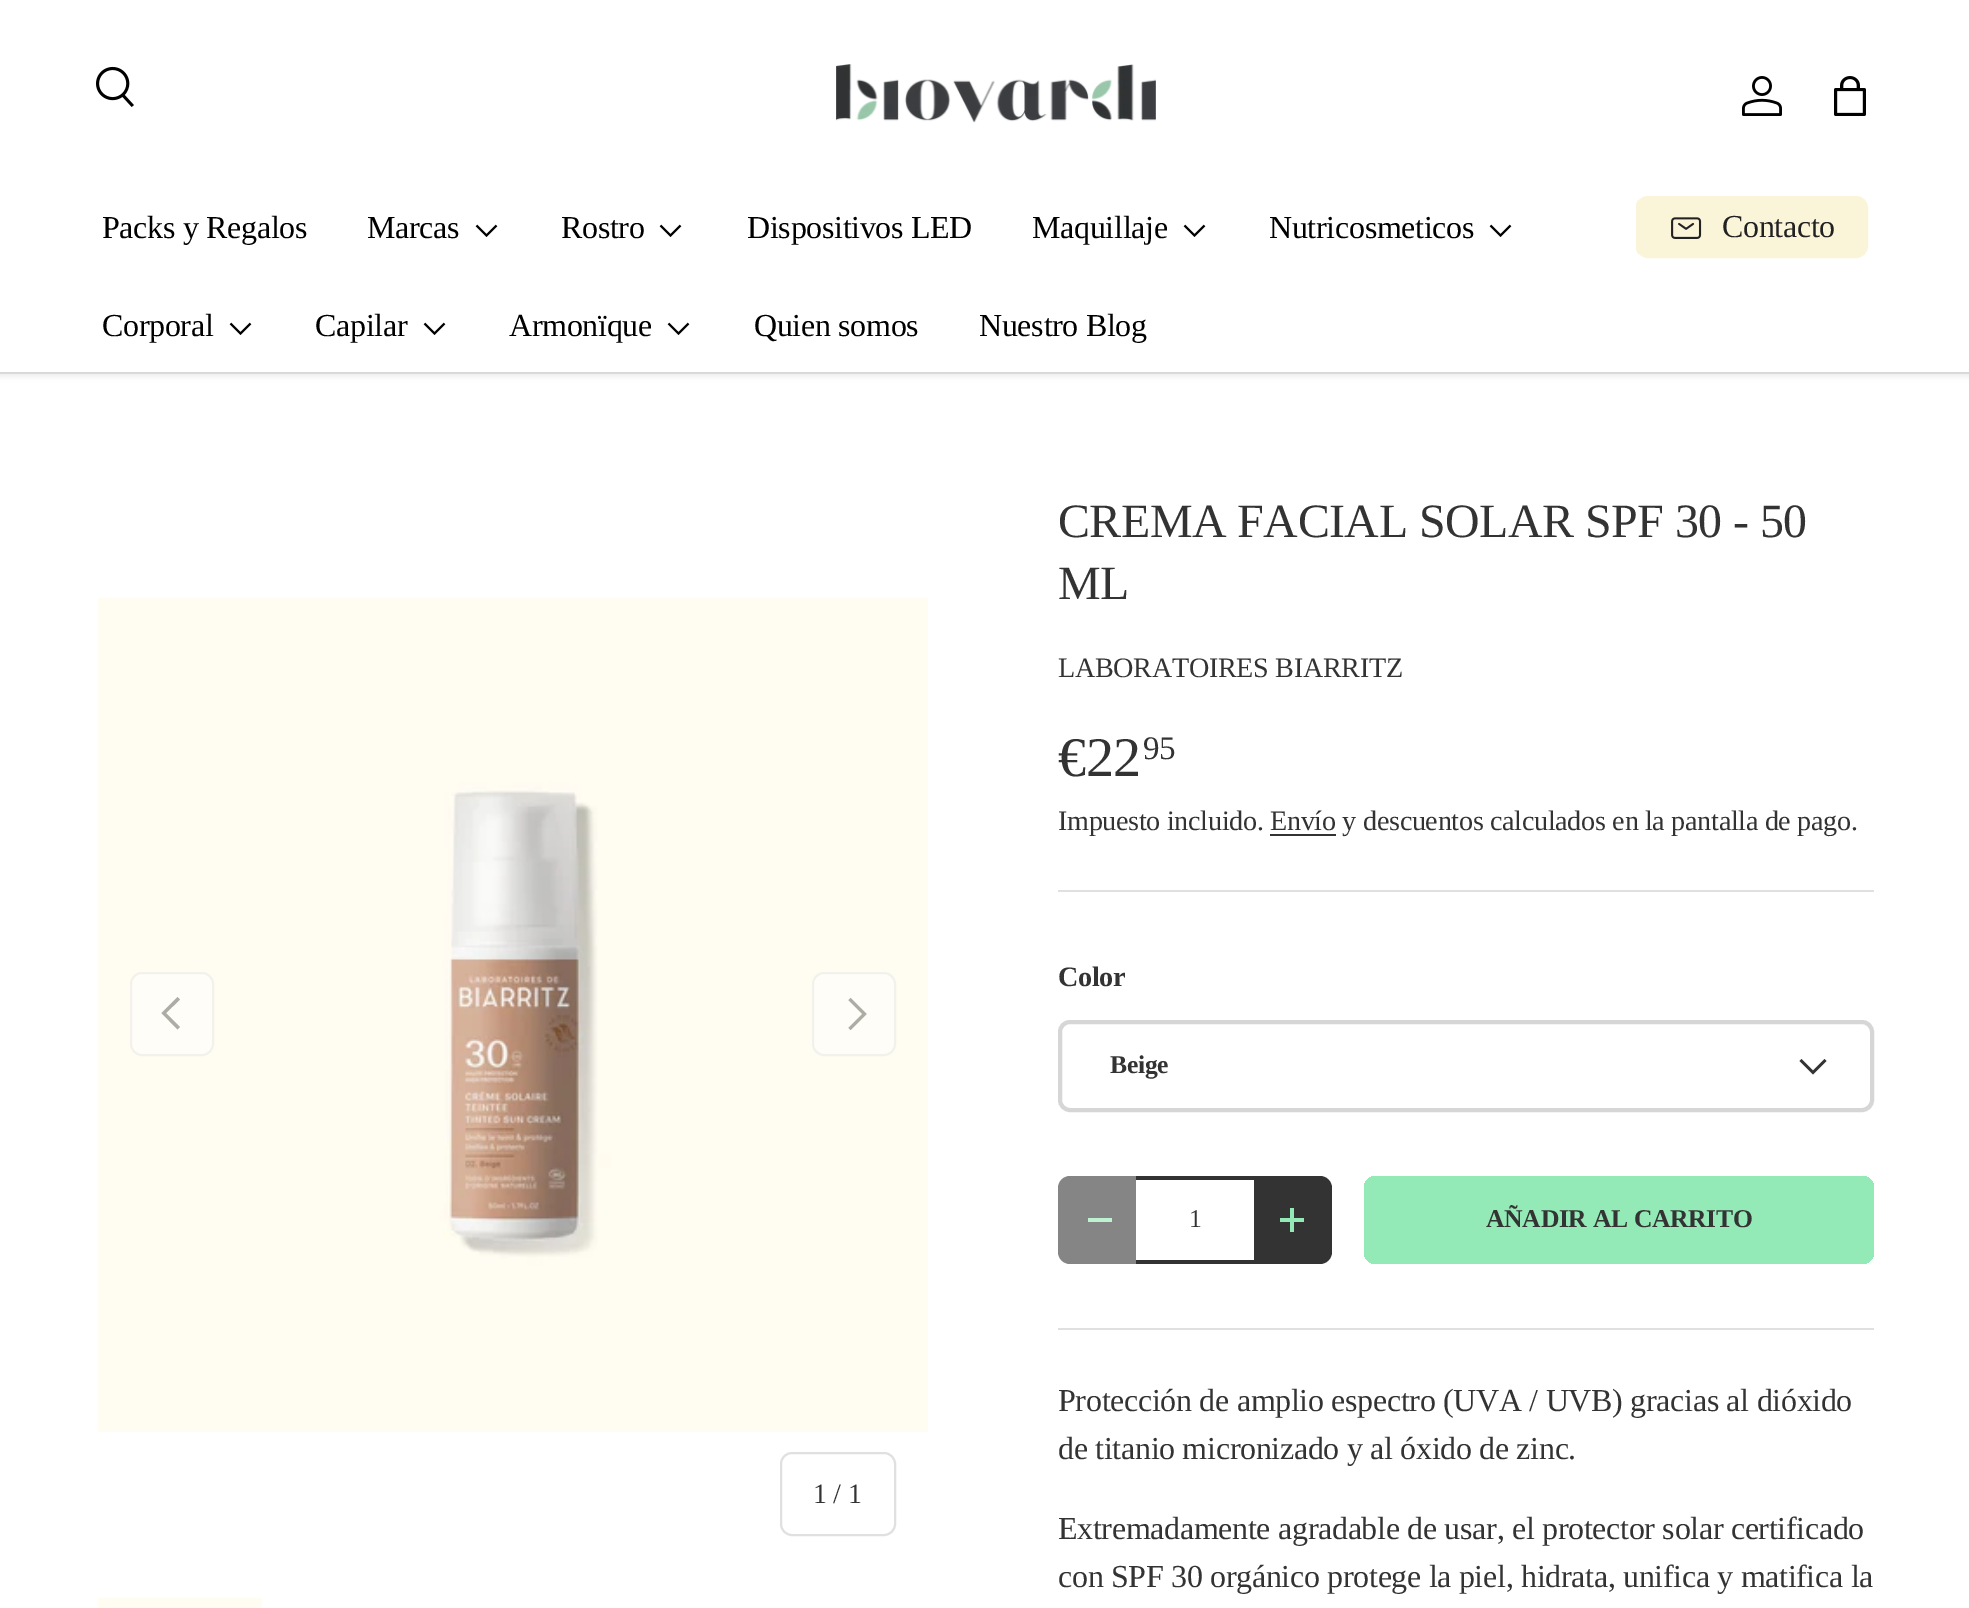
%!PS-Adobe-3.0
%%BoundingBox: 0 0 1969 1608
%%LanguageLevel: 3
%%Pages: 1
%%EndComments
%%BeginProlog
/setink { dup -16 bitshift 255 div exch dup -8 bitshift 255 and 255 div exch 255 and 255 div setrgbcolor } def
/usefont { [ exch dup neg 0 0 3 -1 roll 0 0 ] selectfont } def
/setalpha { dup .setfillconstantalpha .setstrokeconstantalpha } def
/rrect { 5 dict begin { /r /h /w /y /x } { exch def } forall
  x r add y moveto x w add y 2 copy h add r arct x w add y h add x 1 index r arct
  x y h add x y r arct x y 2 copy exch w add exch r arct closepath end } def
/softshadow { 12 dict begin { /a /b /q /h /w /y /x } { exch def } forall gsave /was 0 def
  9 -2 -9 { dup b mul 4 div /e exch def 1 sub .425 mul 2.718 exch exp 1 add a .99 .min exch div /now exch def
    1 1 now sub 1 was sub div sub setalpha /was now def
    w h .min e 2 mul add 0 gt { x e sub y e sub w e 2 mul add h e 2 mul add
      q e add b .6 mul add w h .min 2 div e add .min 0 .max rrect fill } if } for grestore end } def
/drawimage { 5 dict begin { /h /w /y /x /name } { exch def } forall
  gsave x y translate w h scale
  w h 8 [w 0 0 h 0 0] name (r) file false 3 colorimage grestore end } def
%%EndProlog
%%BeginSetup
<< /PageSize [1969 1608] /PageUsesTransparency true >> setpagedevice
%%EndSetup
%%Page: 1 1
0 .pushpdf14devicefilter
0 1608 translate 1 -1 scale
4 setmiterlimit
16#FFFFFF setink
0 0 1969 1608 rectfill
16#000000 setink
-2 -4 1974 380 0 3 0.08 softshadow
16#FFFFFF setink
0 0 1969 372 rectfill
(img1.raw) 96 66 38 41 drawimage
(img2.raw) 836 64 320 59 drawimage
(img3.raw) 1742 76 40 40 drawimage
(img4.raw) 1834 76 32 40 drawimage
/LiberationSerif-Regular 32 usefont
16#000000 setink
102 238 moveto -0.32 0 (Packs y Regalos) ashow
367 238 moveto -0.32 0 (Marcas) ashow
2 setlinewidth
496.5 225.5 moveto 486.5 235.5 lineto 476.5 225.5 lineto stroke
561 238 moveto -0.32 0 (Rostro) ashow
680.5 225.5 moveto 670.5 235.5 lineto 660.5 225.5 lineto stroke
747 238 moveto -0.32 0 (Dispositivos LED) ashow
1032 238 moveto -0.32 0 (Maquillaje) ashow
1204.5 225.5 moveto 1194.5 235.5 lineto 1184.5 225.5 lineto stroke
1269 238 moveto -0.32 0 (Nutricosmeticos) ashow
1510.5 225.5 moveto 1500.5 235.5 lineto 1490.5 225.5 lineto stroke
102 336 moveto -0.32 0 (Corporal) ashow
250.5 323.5 moveto 240.5 333.5 lineto 230.5 323.5 lineto stroke
315 336 moveto -0.32 0 (Capilar) ashow
444.5 323.5 moveto 434.5 333.5 lineto 424.5 323.5 lineto stroke
509 336 moveto -0.32 0 (Armonïque) ashow
688.5 323.5 moveto 678.5 333.5 lineto 668.5 323.5 lineto stroke
754 336 moveto -0.32 0 (Quien somos) ashow
979 336 moveto -0.32 0 (Nuestro Blog) ashow
gsave
1636 196 232 62 12 rrect clip newpath
gsave 1636 200 moveto 1864 200 lineto 1864 254 lineto 1636 254 lineto closepath clip newpath
<< /ShadingType 2 /ColorSpace /DeviceRGB /Coords [1205 147 1851 307] /Extend [true true] /Function << /FunctionType 3 /Domain [0 1] /Functions [<< /FunctionType 2 /Domain [0 1] /C0 [0.875 0.859 0.78] /C1 [0.875 0.859 0.78] /N 1 >> << /FunctionType 2 /Domain [0 1] /C0 [0.98 0.957 0.847] /C1 [0.98 0.957 0.847] /N 1 >>] /Bounds [0.6] /Encode [0 1 0 1] >> >> shfill grestore
grestore
16#FAF4D8 setink
4 setlinewidth
1638 198 228 58 10 rrect stroke
(img5.raw) 1671 217 31 22 drawimage
16#222222 setink
1722 237 moveto -0.32 0 (Contacto) ashow
16#D9D9D9 setink
0 372 1969 2 rectfill
(img6.raw) 98 598 830 834 drawimage
16#FFFDF7 setink
130 972 84 84 12 rrect fill
0.15 setalpha
16#ADACA5 setink
2 setlinewidth
131 973 82 82 11 rrect stroke
1 setalpha
161.5 1013 moveto 177.5 997 lineto 180 999.5 lineto 166 1013 lineto 180 1027 lineto 177.5 1029.5 lineto closepath fill
16#FFFDF7 setink
812 972 84 84 12 rrect fill
0.15 setalpha
16#ADACA5 setink
813 973 82 82 11 rrect stroke
1 setalpha
3 setlinewidth
849.5 999 moveto 864.5 1014 lineto 849.5 1029 lineto stroke
16#E0E0E0 setink
2 setlinewidth
781 1453 114 82 11 rrect stroke
/LiberationSerif-Regular 28.15 usefont
16#333333 setink
813 1503 moveto -0.32 0 (1 / 1) ashow
16#FFFCF1 setink
98 1598 164 10 rectfill
/LiberationSerif-Regular 47.9 usefont
16#333333 setink
1058 537 moveto -0.5 0 (CREMA FACIAL SOLAR SPF 30 - 50) ashow
1058 599 moveto -0.5 0 (ML) ashow
/LiberationSerif-Regular 28.15 usefont
1058 677 moveto -0.32 0 (LABORATOIRES BIARRITZ) ashow
/LiberationSerif-Regular 56 usefont
1058 776 moveto -0.32 0 (€22) ashow
/LiberationSerif-Regular 33 usefont
1143 759 moveto -0.32 0 (95) ashow
/LiberationSerif-Regular 28.15 usefont
1058 830 moveto -0.32 0 (Impuesto incluido. Envío y descuentos calculados en la pantalla de pago.) ashow
1270 834 66 2 rectfill
16#E0E0E0 setink
1058 890 816 2 rectfill
/LiberationSerif-Bold 28.15 usefont
16#333333 setink
1058 986 moveto -0.32 0 (Color) ashow
16#D6D6D6 setink
4 setlinewidth
1060 1022 812 88 10 rrect stroke
/LiberationSerif-Bold 25.6 usefont
16#333333 setink
1110 1073 moveto -0.32 0 (Beige) ashow
2.5 setlinewidth
1825.5 1060 moveto 1813 1072.5 lineto 1800.5 1060 lineto stroke
16#858585 setink
1070 1176 moveto 1136 1176 lineto 1136 1264 lineto 1070 1264 lineto 1063.5 1264 1058 1258.5 1058 1252 curveto 1058 1188 lineto 1058 1181.5 1063.5 1176 1070 1176 curveto closepath fill
[
    [1088 1218 24 4 16#BEF2D3]
    [1136 1260 118 4 16#333333]
    [1136 1176 118 4 16#333333]
] { aload pop setink rectfill } forall
/LiberationSerif-Regular 25.6 usefont
1189 1227 moveto (1) show
1254 1176 moveto 1320 1176 lineto 1326.5 1176 1332 1181.5 1332 1188 curveto 1332 1252 lineto 1332 1258.5 1326.5 1264 1320 1264 curveto 1254 1264 lineto closepath fill
16#93EAB6 setink
1280 1218 24 4 rectfill
1290 1208 4 24 rectfill
gsave 1364 1176 510 88 12 rrect clip newpath
<< /ShadingType 2 /ColorSpace /DeviceRGB /Coords [378 1038 1840 1402] /Extend [true true] /Function << /FunctionType 3 /Domain [0 1] /Functions [<< /FunctionType 2 /Domain [0 1] /C0 [0.565 0.827 0.667] /C1 [0.565 0.827 0.667] /N 1 >> << /FunctionType 2 /Domain [0 1] /C0 [0.576 0.918 0.714] /C1 [0.576 0.918 0.714] /N 1 >>] /Bounds [0.6] /Encode [0 1 0 1] >> >> shfill grestore
/LiberationSerif-Bold 25.6 usefont
16#333333 setink
1486 1227 moveto -0.32 0 (AÑADIR AL CARRITO) ashow
16#E0E0E0 setink
1058 1328 816 2 rectfill
/LiberationSerif-Regular 32 usefont
16#333333 setink
1058 1411 moveto -0.32 0 (Protección de amplio espectro \(UVA / UVB\) gracias al dióxido) ashow
1058 1459 moveto -0.32 0 (de titanio micronizado y al óxido de zinc.) ashow
1058 1539 moveto -0.32 0 (Extremadamente agradable de usar, el protector solar certificado) ashow
1058 1587 moveto -0.32 0 (con SPF 30 orgánico protege la piel, hidrata, unifica y matifica la) ashow
.poppdf14devicefilter showpage
%%EOF
